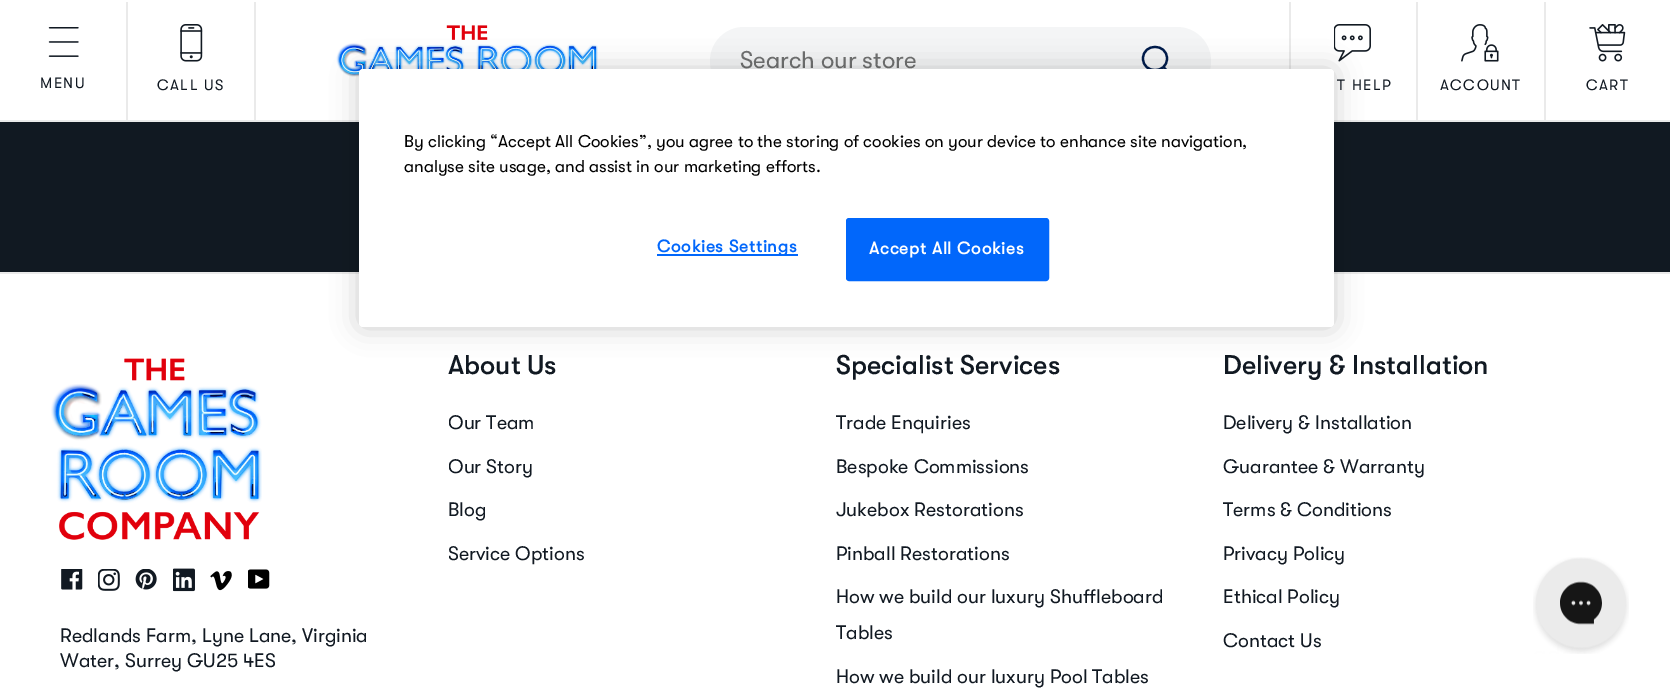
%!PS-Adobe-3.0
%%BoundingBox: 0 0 1670 688
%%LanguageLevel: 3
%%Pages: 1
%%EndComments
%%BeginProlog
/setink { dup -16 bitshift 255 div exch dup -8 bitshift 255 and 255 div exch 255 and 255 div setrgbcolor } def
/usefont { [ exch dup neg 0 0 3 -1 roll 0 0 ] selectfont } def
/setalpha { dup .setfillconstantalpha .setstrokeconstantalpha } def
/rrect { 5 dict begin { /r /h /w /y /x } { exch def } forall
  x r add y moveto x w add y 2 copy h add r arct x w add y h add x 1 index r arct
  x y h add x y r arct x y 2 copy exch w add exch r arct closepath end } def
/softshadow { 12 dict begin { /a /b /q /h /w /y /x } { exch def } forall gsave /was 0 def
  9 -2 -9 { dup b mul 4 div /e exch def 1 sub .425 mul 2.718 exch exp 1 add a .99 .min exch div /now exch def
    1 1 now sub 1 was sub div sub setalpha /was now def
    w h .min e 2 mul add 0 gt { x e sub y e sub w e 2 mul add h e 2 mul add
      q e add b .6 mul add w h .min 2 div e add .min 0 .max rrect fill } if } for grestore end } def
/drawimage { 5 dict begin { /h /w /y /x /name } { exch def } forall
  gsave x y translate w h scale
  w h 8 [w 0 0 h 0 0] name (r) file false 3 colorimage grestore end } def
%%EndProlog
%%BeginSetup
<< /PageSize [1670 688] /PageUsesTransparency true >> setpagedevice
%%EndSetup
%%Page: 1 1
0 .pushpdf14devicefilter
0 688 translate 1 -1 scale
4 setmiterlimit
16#FFFFFF setink
0 0 1670 688 rectfill
16#EAEAEA setink
0 120 1670 2 rectfill
(img1.raw) 336 25 262 52 drawimage
16#F4F5F6 setink
710 27 501 68 34 rrect fill
/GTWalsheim-Regular 24 usefont
16#707171 setink
740 68 moveto (Search our store) show
16#001B4C setink
2.2 setlinewidth
1 setlinecap
1 setlinejoin
1167 58.5 moveto 1167 74 1143 74 1143 58.5 curveto 1143 43 1167 43 1167 58.5 curveto closepath 1172 76 moveto 1163.5 67 lineto stroke
16#EAEAEA setink
126 2 2 118 rectfill
(img2.raw) 48 27 31 30 drawimage
/GTWalsheim-Regular 15 usefont
16#111922 setink
40 88 moveto 1.5 0 (MENU) ashow
16#EAEAEA setink
254 2 2 118 rectfill
(img3.raw) 180 24 23 38 drawimage
16#111922 setink
157 90 moveto 1.5 0 (CALL US) ashow
16#EAEAEA setink
1289 2 2 67 rectfill
(img4.raw) 1334 24 37 38 drawimage
16#111922 setink
1337 90 moveto 1.5 0 (T HELP) ashow
16#EAEAEA setink
1416 2 2 118 rectfill
(img5.raw) 1461 24 38 38 drawimage
16#111922 setink
1440 90 moveto 1.5 0 (ACCOUNT) ashow
16#EAEAEA setink
1544 2 2 118 rectfill
(img6.raw) 1589 24 37 38 drawimage
16#111922 setink
1586 90 moveto 1.5 0 (CART) ashow
0 122 1670 150 rectfill
16#EAEAEA setink
0 272 1670 2 rectfill
16#000000 setink
359 69 975 258 4 13.5 0.2 softshadow
16#FFFFFF setink
359 69 975 258 4 rrect fill
/GTWalsheim-Regular 17.05 usefont
16#000000 setink
404 147 moveto (By clicking “Accept All Cookies”, you agree to the storing of cookies on your device to enhance site navigation,) show
404 172 moveto (analyse site usage, and assist in our marketing efforts.) show
16#0167FB setink
657 254 141 2 rectfill
/GTWalsheim-Bold 17.05 usefont
657 252 moveto 0.8 0 (Cookies Settings) ashow
847 219 201 61 2 rrect gsave fill grestore
2 setlinewidth
0 setlinecap
0 setlinejoin
stroke
16#FFFFFF setink
869 254 moveto 0.8 0 (Accept All Cookies) ashow
(img7.raw) 51 358 211 182 drawimage
(img8.raw) 61 569 22 21 drawimage
(img9.raw) 98 569 22 22 drawimage
(img10.raw) 135 569 22 21 drawimage
(img11.raw) 173 568 22 24 drawimage
(img12.raw) 210 571 22 20 drawimage
(img13.raw) 248 569 22 20 drawimage
/GTWalsheim-Regular 19.5 usefont
16#111922 setink
60 642 moveto (Redlands Farm, Lyne Lane, Virginia) show
60 667 moveto (Water, Surrey GU25 4ES) show
/GTWalsheim-Medium 27 usefont
448 374 moveto (About Us) show
gsave
449 404 342 201 rectclip
/GTWalsheim-Regular 19.5 usefont
448 429 moveto (Our Team) show
448 473 moveto (Our Story) show
grestore
/GTWalsheim-Regular 19.5 usefont
448 516 moveto (Blog) show
gsave
449 404 342 201 rectclip
448 560 moveto (Service Options) show
grestore
/GTWalsheim-Medium 27 usefont
836 374 moveto (Specialist Services) show
/GTWalsheim-Regular 19.5 usefont
[
    [(Trade Enquiries) 836 429]
    [(Bespoke Commissions) 836 473]
    [(Jukebox Restorations) 836 516]
    [(Pinball Restorations) 836 560]
    [(How we build our luxury Shuffleboard) 836 603]
    [(Tables) 836 639]
    [(How we build our luxury Pool Tables) 836 683]
] { aload pop moveto show } forall
/GTWalsheim-Medium 27 usefont
1223 374 moveto (Delivery & Installation) show
/GTWalsheim-Regular 19.5 usefont
[
    [(Delivery & Installation) 1223 429]
    [(Guarantee & Warranty) 1223 473]
    [(Terms & Conditions) 1223 516]
    [(Privacy Policy) 1223 560]
    [(Ethical Policy) 1223 603]
    [(Contact Us) 1223 647]
] { aload pop moveto show } forall
(img14.raw) 1533 557 96 97 drawimage
.poppdf14devicefilter showpage
%%EOF
